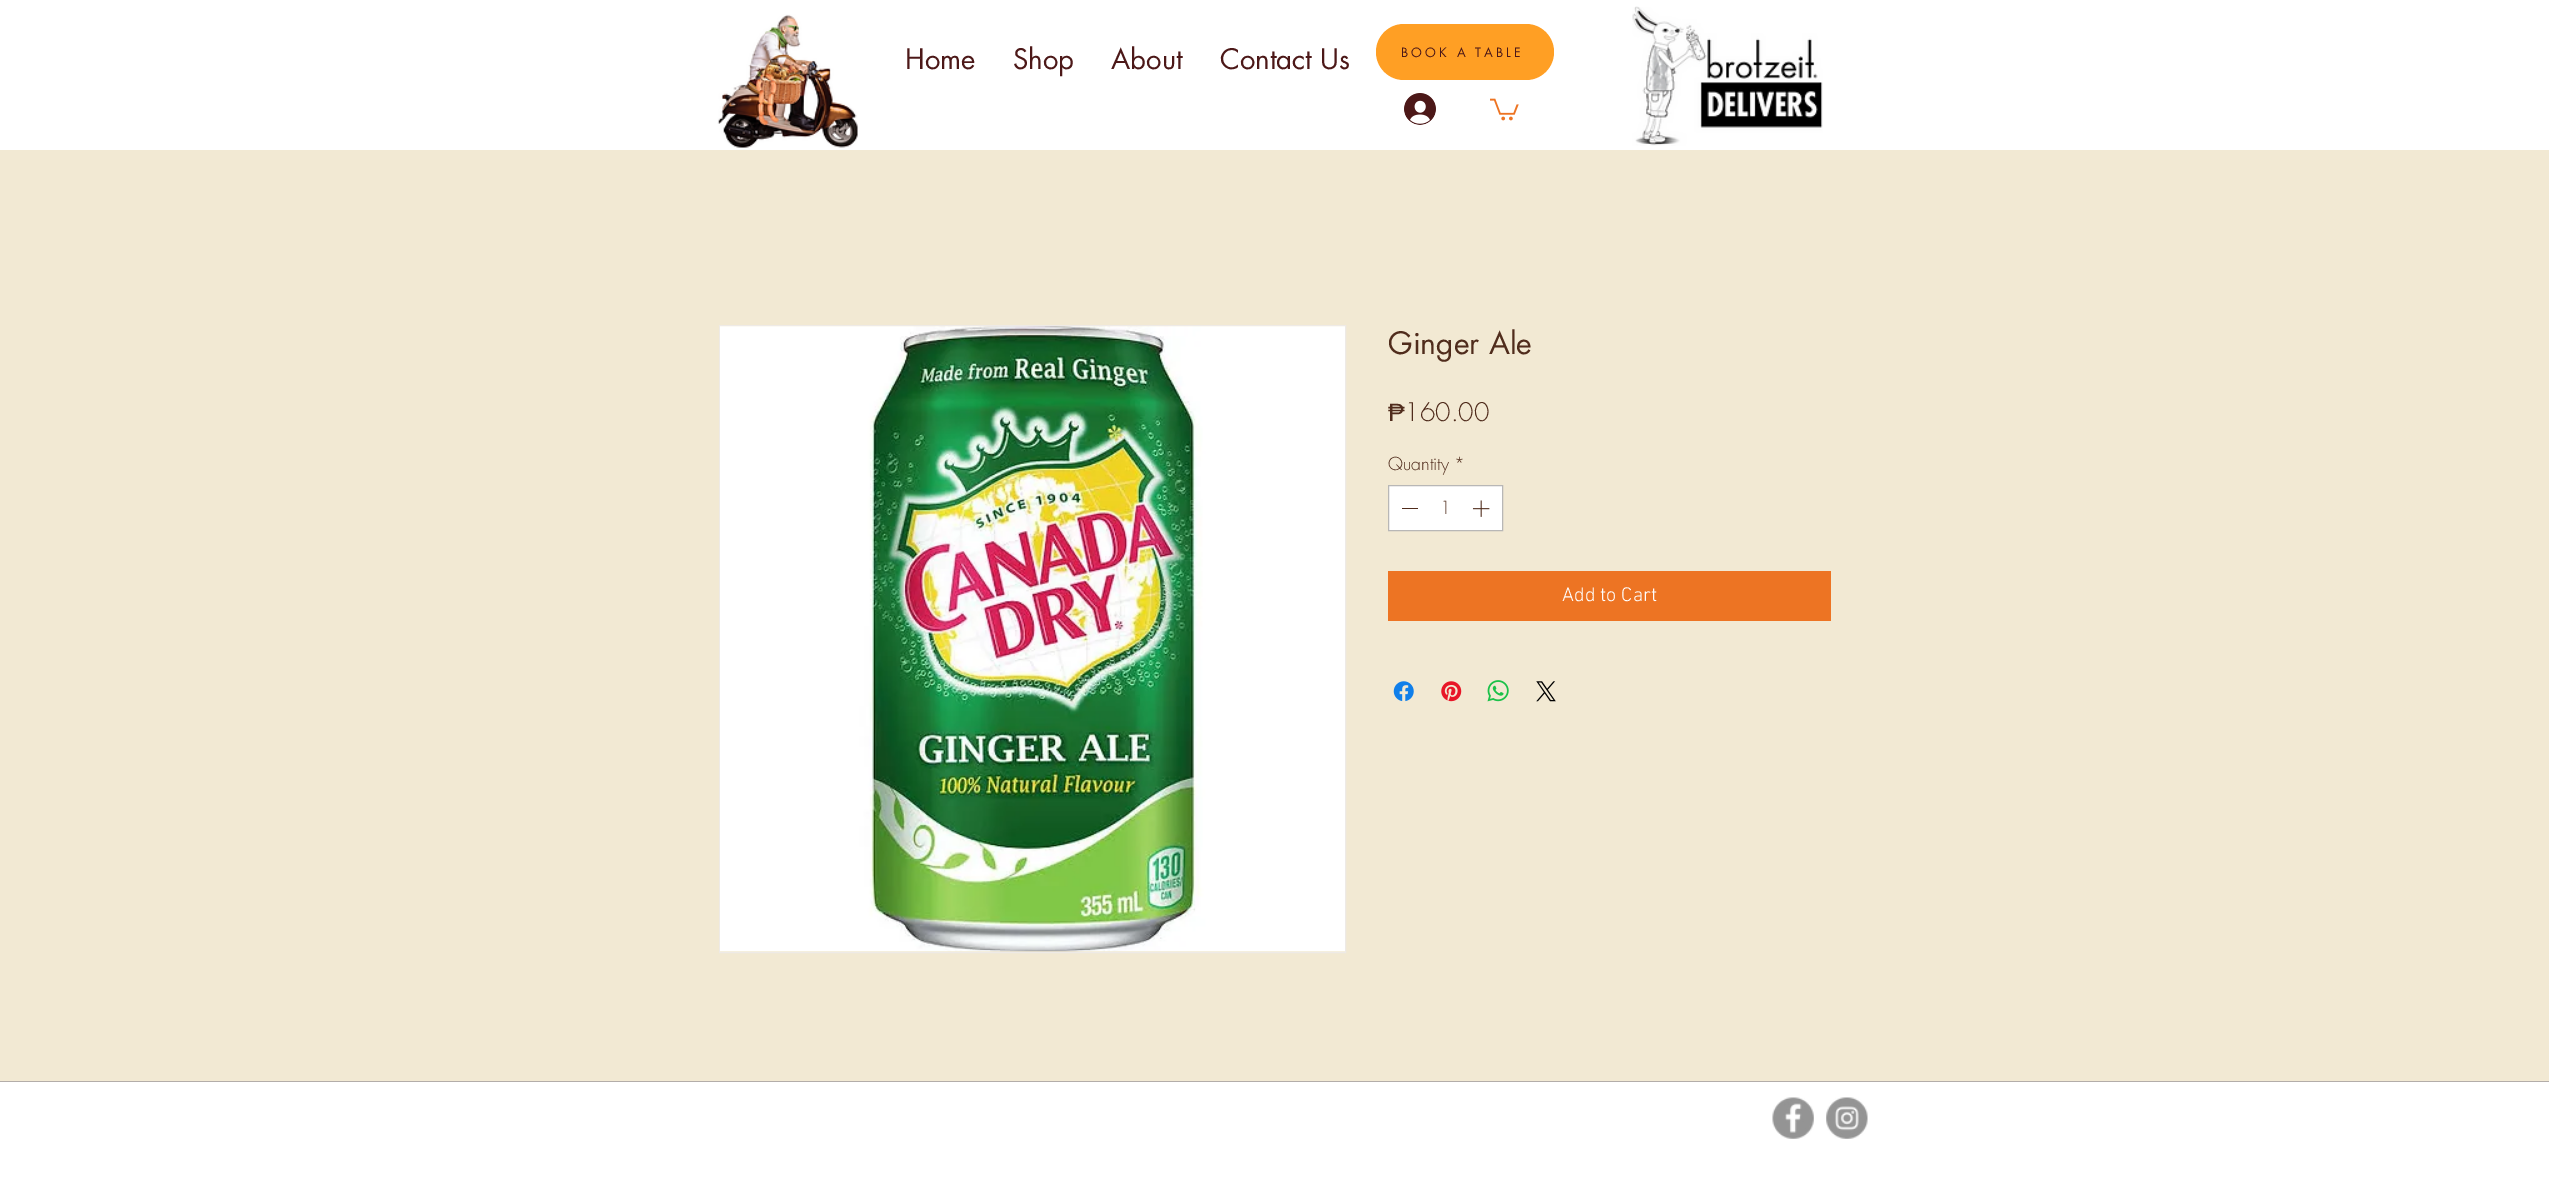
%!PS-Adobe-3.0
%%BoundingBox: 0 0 2549 1195
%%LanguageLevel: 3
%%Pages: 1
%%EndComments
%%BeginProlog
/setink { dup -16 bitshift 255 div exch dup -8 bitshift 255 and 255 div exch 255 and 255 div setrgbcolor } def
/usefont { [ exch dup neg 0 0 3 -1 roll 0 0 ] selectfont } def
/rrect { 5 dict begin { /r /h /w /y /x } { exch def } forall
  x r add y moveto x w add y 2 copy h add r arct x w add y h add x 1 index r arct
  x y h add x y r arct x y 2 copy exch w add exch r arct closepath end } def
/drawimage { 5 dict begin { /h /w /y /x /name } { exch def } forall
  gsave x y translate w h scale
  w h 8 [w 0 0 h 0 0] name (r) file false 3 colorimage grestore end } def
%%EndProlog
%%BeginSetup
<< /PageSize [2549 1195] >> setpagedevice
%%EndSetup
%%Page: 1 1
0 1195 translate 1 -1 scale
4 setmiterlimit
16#F2E9D3 setink
0 0 2549 1195 rectfill
16#FFFFFF setink
0 0 2549 150 rectfill
(img1.raw) 717 14 141 134 drawimage
/futura-Regular 27.5 usefont
16#4C1818 setink
[
    [(Home) 905 69]
    [(Shop) 1013 69]
    [(About) 1111 69]
    [(Contact Us) 1220 69]
] { aload pop moveto show } forall
16#FF9F24 setink
1376 24 178 56 28 rrect fill
/futura-Regular 12.5 usefont
16#4C1818 setink
1401 57 moveto 3.1 0 (BOOK A TABLE) ashow
(img2.raw) 1632 6 191 140 drawimage
(img3.raw) 1404 93 32 32 drawimage
(img4.raw) 1490 98 29 23 drawimage
16#EEEAE6 setink
719.5 325.5 626 627 rectstroke
(img5.raw) 720 326 625 626 drawimage
/futura-Regular 30 usefont
16#502C1C setink
1388 354 moveto (Ginger Ale) show
/LiberationSans-Regular 25 usefont
1388 421 moveto (₱) show
/futura-Light 25 usefont
1404 421 moveto (160.00) show
/futura-Light 17.5 usefont
1388 470 moveto (Quantity) show
1454 470 moveto (*) show
16#FFFFFF setink
1388.5 485.5 moveto 1502.5 485.5 lineto 1502.5 530.5 lineto 1388.5 530.5 lineto closepath gsave fill grestore
16#B8B7B6 setink
stroke
16#502C1C setink
1402 508 16 1 rectfill
1440 514 moveto (1) show
(img6.raw) 1472 500 18 17 drawimage
16#ED7423 setink
1388 571 443 50 rectfill
/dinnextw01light-Light 20 usefont
16#FFFFFF setink
1562 601 moveto (Add to Cart) show
(img7.raw) 1393 681 21 21 drawimage
(img8.raw) 1441 681 21 21 drawimage
(img9.raw) 1487 680 22 22 drawimage
(img10.raw) 1536 681 20 21 drawimage
0 1082 2549 113 rectfill
16#B3ADA9 setink
0 1081 2549 1 rectfill
(img11.raw) 1772 1097 42 42 drawimage
(img12.raw) 1826 1097 42 42 drawimage
showpage
%%EOF
